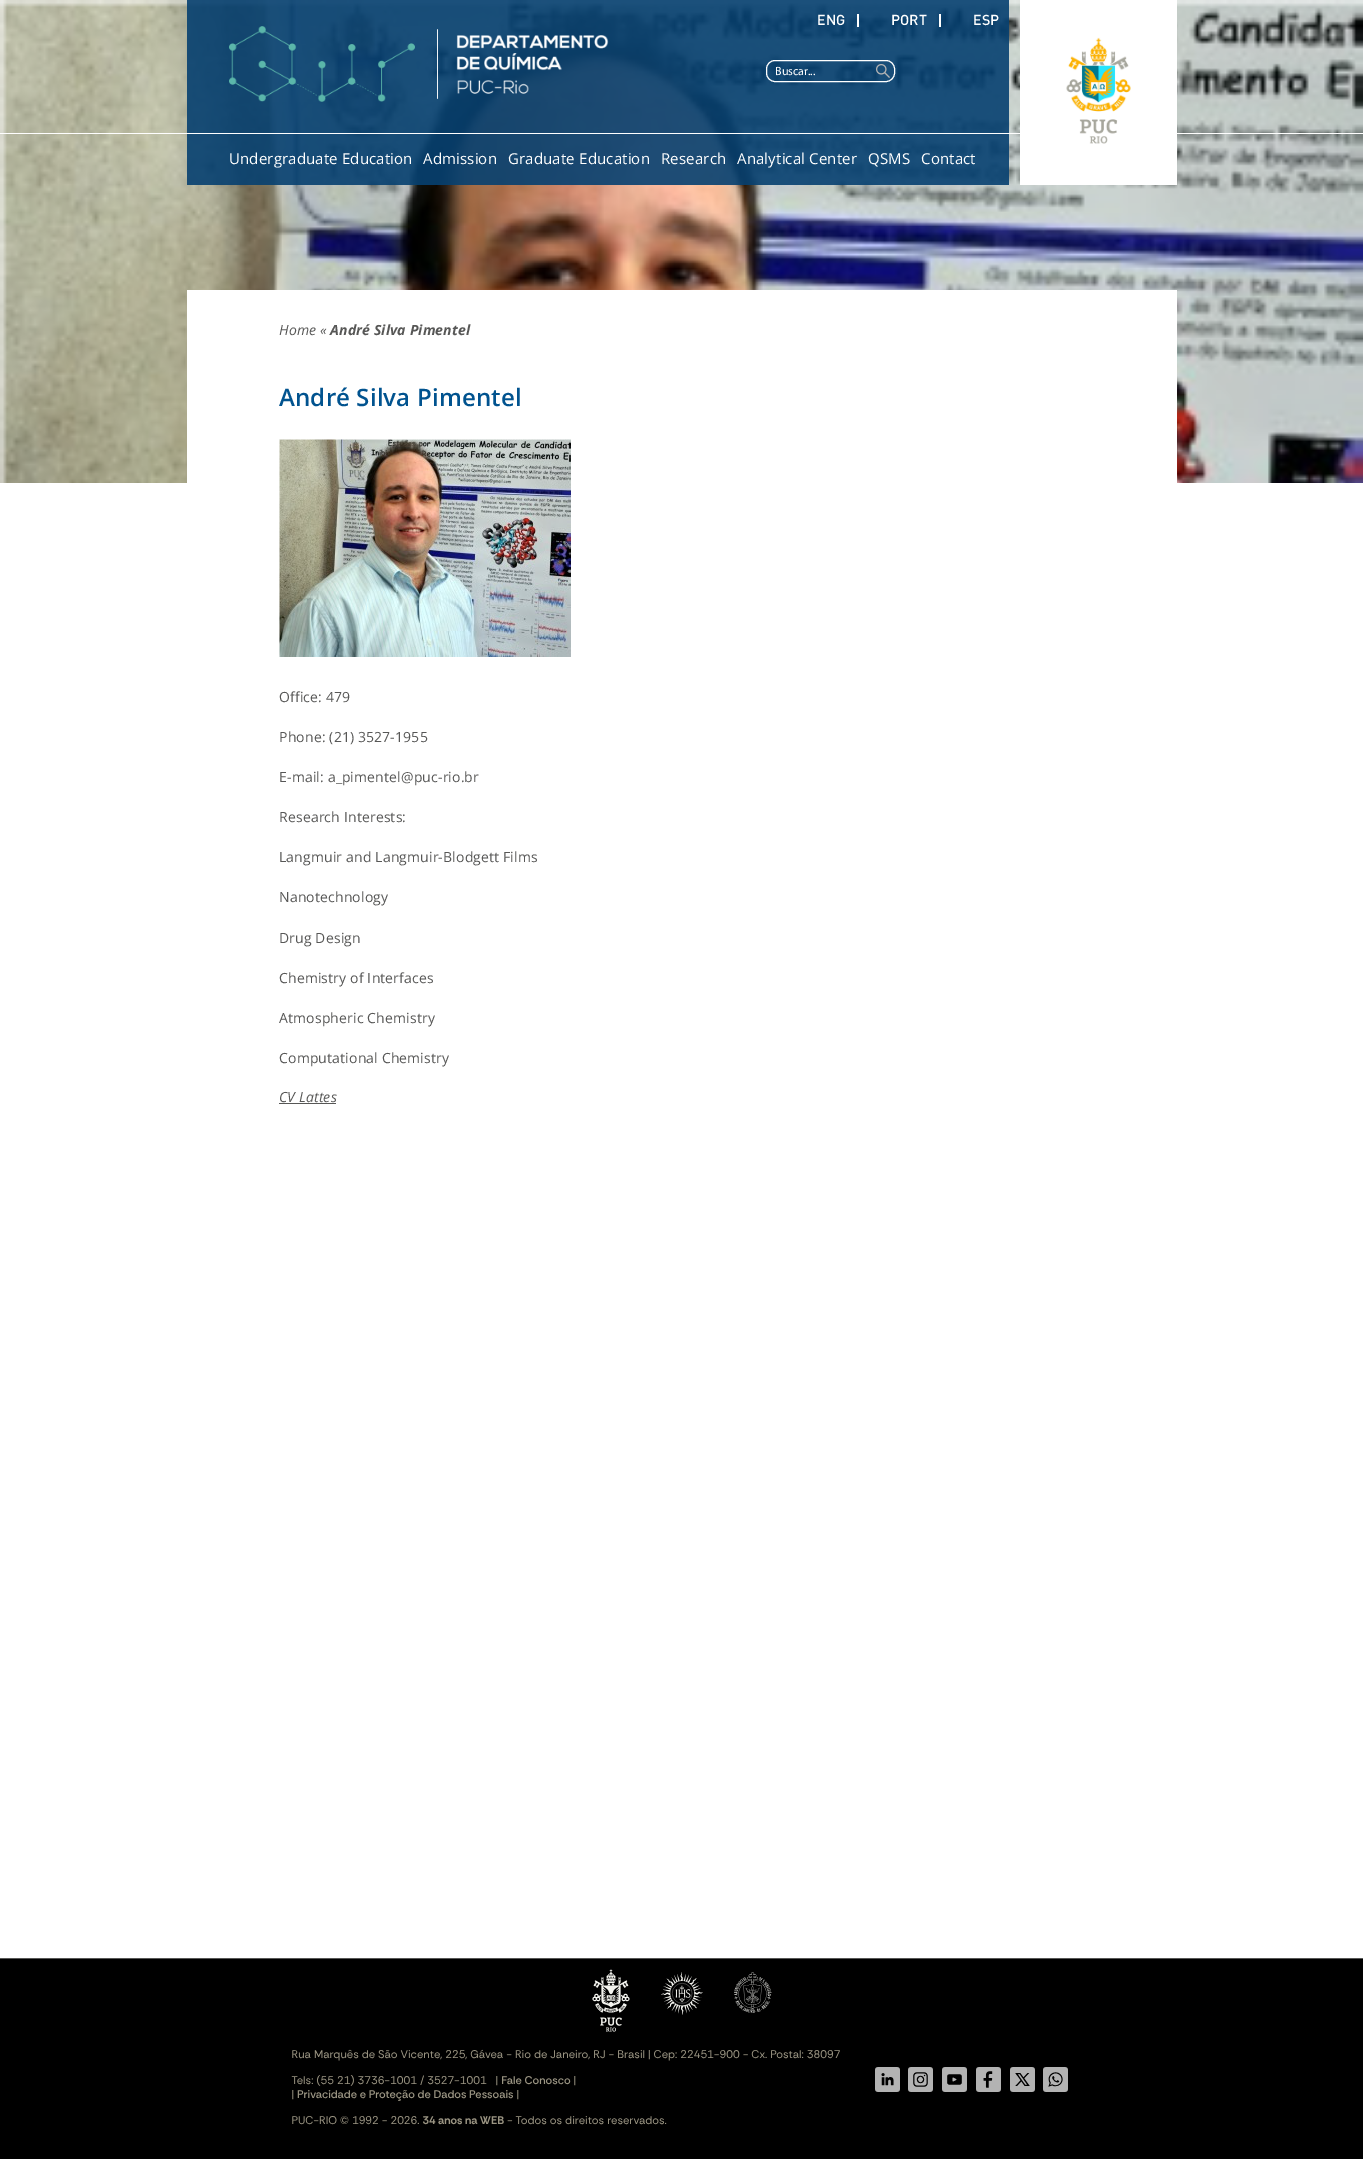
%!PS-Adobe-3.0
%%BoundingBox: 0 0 1363 2164
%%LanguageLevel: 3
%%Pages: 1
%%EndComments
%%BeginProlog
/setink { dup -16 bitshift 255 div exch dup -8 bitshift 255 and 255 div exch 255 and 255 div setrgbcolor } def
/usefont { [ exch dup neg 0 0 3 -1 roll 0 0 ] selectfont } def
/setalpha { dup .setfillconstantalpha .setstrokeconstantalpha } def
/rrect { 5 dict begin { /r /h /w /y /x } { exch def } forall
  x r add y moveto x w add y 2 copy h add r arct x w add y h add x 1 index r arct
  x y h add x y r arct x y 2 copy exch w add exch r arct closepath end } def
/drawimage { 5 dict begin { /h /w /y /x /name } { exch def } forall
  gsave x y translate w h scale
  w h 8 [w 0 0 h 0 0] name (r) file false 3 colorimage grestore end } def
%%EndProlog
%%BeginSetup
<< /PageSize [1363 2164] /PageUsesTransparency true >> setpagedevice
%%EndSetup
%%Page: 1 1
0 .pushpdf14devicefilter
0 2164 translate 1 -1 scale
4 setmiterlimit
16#FFFFFF setink
0 0 1363 2164 rectfill
(img1.raw) 0 0 1363 483 drawimage
0.9 setalpha
16#064070 setink
187 0 822 185 rectfill
1 setalpha
16#FFFFFF setink
857 14 2 13 rectfill
/DIN-Medium 14 usefont
817 25 moveto 0.15 0 (ENG) ashow
939 14 2 13 rectfill
891 25 moveto 0.15 0 (PORT) ashow
973 25 moveto 0.15 0 (ESP) ashow
(img2.raw) 229 26 380 76 drawimage
766.5 60.5 128 21 8.5 rrect stroke
/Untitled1-Medium 12 usefont
775 75 moveto (Buscar...) show
(img3.raw) 876 64 14 14 drawimage
/OpenSans-Regular 15 usefont
229 164 moveto 0.15 0 (Undergraduate Education) ashow
423 164 moveto 0.15 0 (Admission) ashow
508 164 moveto 0.15 0 (Graduate Education) ashow
661 164 moveto 0.15 0 (Research) ashow
737 164 moveto 0.15 0 (Analytical Center) ashow
868 164 moveto 0.15 0 (QSMS) ashow
921 164 moveto 0.15 0 (Contact) ashow
0 133 1363 1 rectfill
1020 0 157 185 rectfill
(img4.raw) 1066 37 65 107 drawimage
187 290 990 193 rectfill
/OpenSans-Italic 14 usefont
16#575756 setink
279 335 moveto 0.15 0 (Home «) ashow
/OpenSans-BoldItalic 14 usefont
330 335 moveto 0.15 0 (André Silva Pimentel) ashow
/OpenSans-SemiBold 24 usefont
16#01538F setink
279 406 moveto 0.15 0 (André Silva Pimentel) ashow
(img5.raw) 279 439 292 218 drawimage
/OpenSans-Regular 14 usefont
16#575756 setink
279 702 moveto 0.15 0 (Office: 479) ashow
279 742 moveto 0.15 0 (Phone: \(21\) 3527-1955) ashow
279 782 moveto 0.15 0 (E-mail: a_pimentel@puc-rio.br) ashow
279 822 moveto 0.15 0 (Research Interests:) ashow
279 862 moveto 0.15 0 (Langmuir and Langmuir-Blodgett Films) ashow
279 902 moveto 0.15 0 (Nanotechnology) ashow
279 943 moveto 0.15 0 (Drug Design) ashow
279 983 moveto 0.15 0 (Chemistry of Interfaces) ashow
279 1023 moveto 0.15 0 (Atmospheric Chemistry) ashow
279 1063 moveto 0.15 0 (Computational Chemistry) ashow
/OpenSans-Italic 14 usefont
279 1102 moveto 0.15 0 (CV Lattes) ashow
279 1103 57 1 rectfill
0 1958 1363 1 rectfill
(img6.raw) 0 1959 1363 200 drawimage
.poppdf14devicefilter showpage
%%EOF
